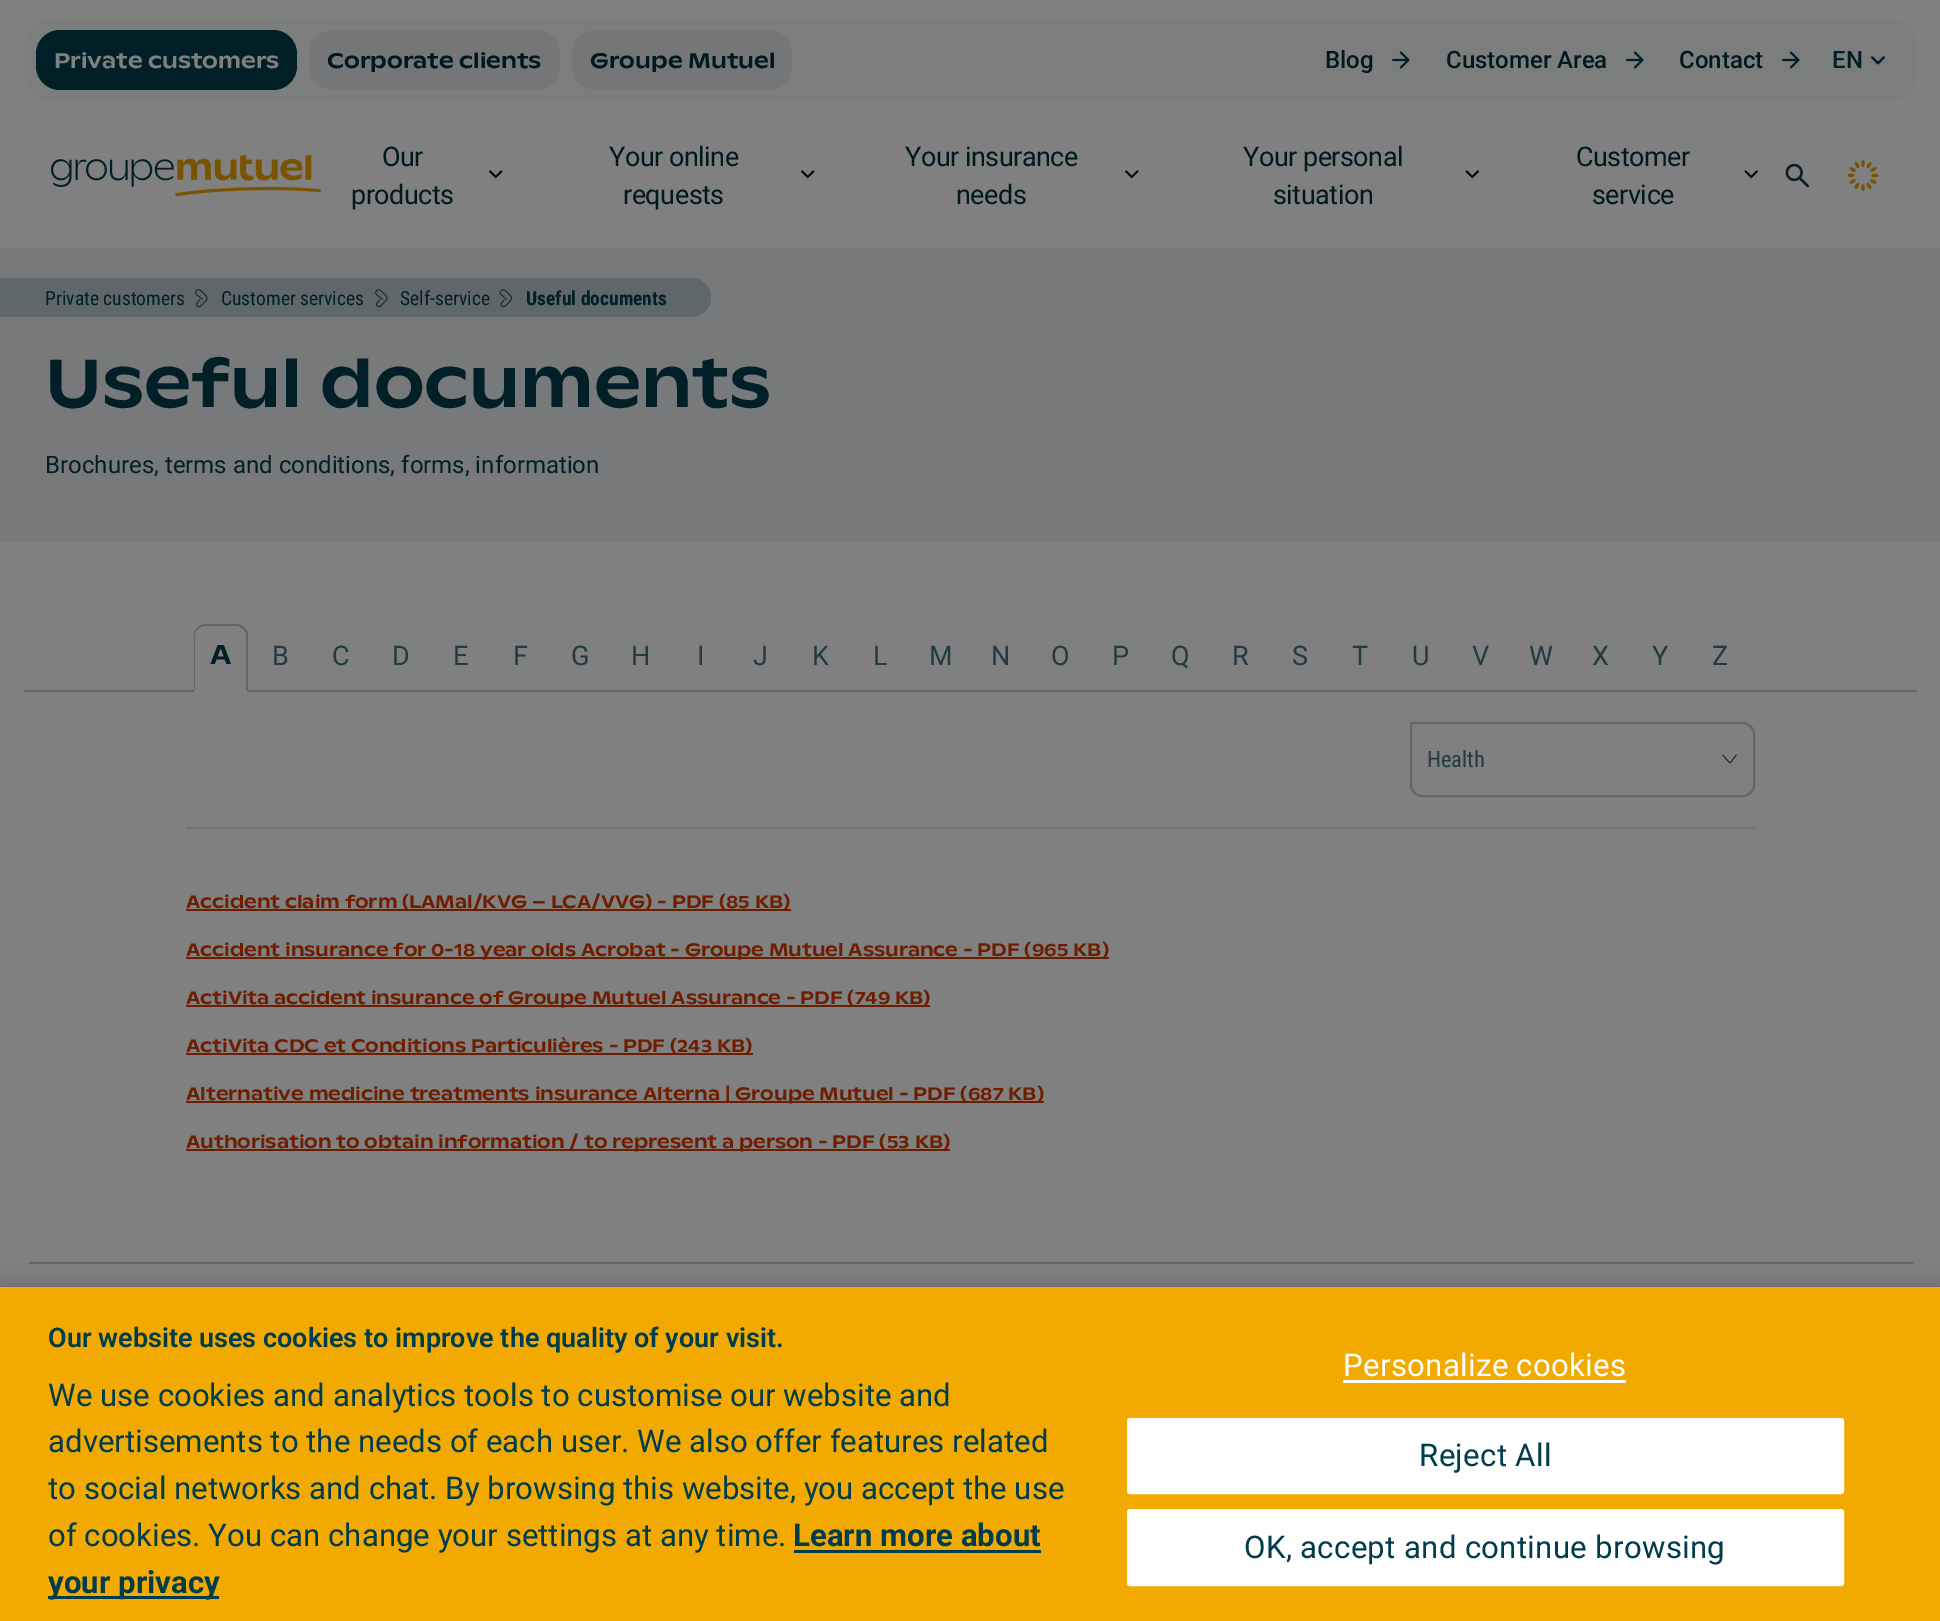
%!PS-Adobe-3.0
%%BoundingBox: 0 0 1940 1621
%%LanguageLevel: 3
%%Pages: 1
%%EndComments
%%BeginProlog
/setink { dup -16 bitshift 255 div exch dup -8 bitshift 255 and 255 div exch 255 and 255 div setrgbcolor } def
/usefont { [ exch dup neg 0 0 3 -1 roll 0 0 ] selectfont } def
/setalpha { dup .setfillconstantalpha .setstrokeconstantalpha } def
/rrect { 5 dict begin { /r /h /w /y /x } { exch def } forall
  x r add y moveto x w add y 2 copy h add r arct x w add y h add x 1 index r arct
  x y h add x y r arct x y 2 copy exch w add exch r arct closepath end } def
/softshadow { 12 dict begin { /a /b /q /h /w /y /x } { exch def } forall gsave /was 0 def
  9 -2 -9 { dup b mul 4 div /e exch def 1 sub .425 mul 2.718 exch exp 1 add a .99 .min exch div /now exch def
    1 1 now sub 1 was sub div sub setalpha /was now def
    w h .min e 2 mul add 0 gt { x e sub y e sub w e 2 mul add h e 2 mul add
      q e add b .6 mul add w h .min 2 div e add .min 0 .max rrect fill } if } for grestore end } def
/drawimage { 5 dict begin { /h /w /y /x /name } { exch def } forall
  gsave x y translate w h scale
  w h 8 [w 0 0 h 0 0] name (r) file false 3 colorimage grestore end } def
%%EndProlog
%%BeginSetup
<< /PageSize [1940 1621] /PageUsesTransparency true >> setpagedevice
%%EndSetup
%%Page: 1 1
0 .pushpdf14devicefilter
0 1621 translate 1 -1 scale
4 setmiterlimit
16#808080 setink
0 0 1940 1621 rectfill
16#7C7D7D setink
24 18 1893 84 30 rrect fill
16#001F26 setink
36 30 261 60 24 rrect fill
/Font-Medium 21 usefont
16#808080 setink
54 68 moveto (Private customers) show
16#757678 setink
309 30 251 60 24 rrect fill
16#001920 setink
327 68 moveto (Corporate clients) show
16#757678 setink
572 30 220 60 24 rrect fill
16#001920 setink
590 68 moveto (Groupe Mutuel) show
/Roboto-Medium 24 usefont
1325 68 moveto (Blog) show
(img1.raw) 1392 51 18 18 drawimage
1446 68 moveto (Customer Area) show
(img1.raw) 1626 51 18 18 drawimage
1679 68 moveto (Contact) show
(img1.raw) 1782 51 18 18 drawimage
16#001F26 setink
1832 68 moveto (EN) show
(img2.raw) 1871 56 14 9 drawimage
(img3.raw) 51 155 270 42 drawimage
/Roboto-Regular 27 usefont
16#001920 setink
382 166 moveto -0.5 0 (Our) ashow
(img4.raw) 488 170 15 9 drawimage
351 204 moveto -0.5 0 (products) ashow
609 166 moveto -0.5 0 (Your online) ashow
(img4.raw) 800 170 15 9 drawimage
623 204 moveto -0.5 0 (requests) ashow
905 166 moveto -0.5 0 (Your insurance) ashow
(img4.raw) 1124 170 15 9 drawimage
956 204 moveto -0.5 0 (needs) ashow
1243 166 moveto -0.5 0 (Your personal) ashow
(img5.raw) 1465 170 15 9 drawimage
1273 204 moveto -0.5 0 (situation) ashow
1576 166 moveto -0.5 0 (Customer) ashow
(img5.raw) 1744 170 15 9 drawimage
1592 204 moveto -0.5 0 (service) ashow
(img6.raw) 1785 163 24 25 drawimage
(img7.raw) 1847 160 32 31 drawimage
16#77797A setink
0 248 1940 294 rectfill
16#5F676A setink
0 278 moveto 691.5 278 lineto 702.5 278 711 286.5 711 297.5 curveto 711 308.5 702.5 317 691.5 317 curveto 0 317 lineto closepath fill
/RobotoCondensed-Regular 19.5 usefont
16#001F26 setink
45 305 moveto (Private customers) show
(img8.raw) 195 289 13 19 drawimage
221 305 moveto (Customer services) show
(img8.raw) 375 289 13 19 drawimage
400 305 moveto (Self-service) show
(img9.raw) 499 289 13 19 drawimage
/RobotoCondensed-Bold 19.5 usefont
526 305 moveto (Useful documents) show
/Font-Medium 67.5 usefont
45 407 moveto (Useful documents) show
/Roboto-Regular 24 usefont
45 473 moveto (Brochures, terms and conditions, forms, information) show
16#5F676A setink
24 690 1893 2 rectfill
16#808080 setink
206 624 moveto 236 624 lineto 242.5 624 248 629.5 248 636 curveto 248 692 lineto 194 692 lineto 194 636 lineto 194 629.5 199.5 624 206 624 curveto closepath fill
16#5F676A setink
206 624 moveto 202 624 199 625 197 628 curveto 198 629 lineto 200 627 203 626 206 626 curveto 236 626 lineto 238 626 241 627 243 629 curveto 244 627 lineto 242 625 239 624 236 624 curveto closepath fill
244 627 moveto 246 629 247 631 248 633 curveto 248 692 lineto 246 690 lineto 246 636 lineto 246 633 245 630 243 629 curveto closepath fill
16#808080 setink
248 692 moveto 194 692 lineto 195 690 lineto 246 690 lineto closepath fill
16#5F676A setink
197 628 moveto 195 630 194 633 194 636 curveto 194 691 lineto 195 690 lineto 195 636 lineto 195 633 196 630 198 629 curveto closepath fill
/Font-Medium 27 usefont
16#001F26 setink
210 664 moveto (A) show
/Roboto-Regular 27 usefont
16#223B42 setink
[
    [(B) 272 665]
    [(C) 332 665]
    [(D) 392 665]
    [(E) 453 665]
    [(F) 513 665]
    [(G) 571 665]
    [(H) 631 665]
    [(I) 697 665]
    [(J) 753 665]
    [(K) 812 665]
    [(L) 873 665]
    [(M) 929 665]
    [(N) 991 665]
    [(O) 1051 665]
    [(P) 1112 665]
    [(Q) 1171 665]
    [(R) 1232 665]
    [(S) 1292 665]
    [(T) 1352 665]
    [(U) 1412 665]
    [(V) 1472 665]
    [(W) 1529 665]
    [(X) 1592 665]
    [(Y) 1652 665]
    [(Z) 1712 665]
] { aload pop moveto show } forall
16#6F7476 setink
186 827 1569 2 rectfill
16#5F676A setink
2 setlinewidth
1411 723 moveto 1743 723 lineto 1749 723 1754 728 1754 734 curveto 1754 785 lineto 1754 791 1749 796 1743 796 curveto 1422 796 lineto 1416 796 1411 791 1411 785 curveto closepath stroke
/RobotoCondensed-Regular 22.5 usefont
16#223B42 setink
1427 767 moveto (Health) show
(img10.raw) 1722 754 15 10 drawimage
16#6E1D00 setink
186 909 605 2 rectfill
/Font-Medium 18 usefont
186 908 moveto (Accident claim form \(LAMal/KVG – LCA/VVG\) - PDF \(85 KB\)) show
186 957 923 2 rectfill
186 956 moveto (Accident insurance for 0-18 year olds Acrobat - Groupe Mutuel Assurance - PDF \(965 KB\)) show
186 1005 744 2 rectfill
186 1004 moveto (ActiVita accident insurance of Groupe Mutuel Assurance - PDF \(749 KB\)) show
186 1053 567 2 rectfill
186 1052 moveto (ActiVita CDC et Conditions Particulières - PDF \(243 KB\)) show
186 1101 858 2 rectfill
186 1100 moveto (Alternative medicine treatments insurance Alterna | Groupe Mutuel - PDF \(687 KB\)) show
186 1149 764 2 rectfill
186 1148 moveto (Authorisation to obtain information / to represent a person - PDF \(53 KB\)) show
16#5F676A setink
29 1262 1884 2 rectfill
16#000000 setink
0 1287 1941 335 0 13.5 0.2 softshadow
16#F2A900 setink
0 1287 1940 334 rectfill
/Roboto-SemiBold 27 usefont
16#003D4C setink
48 1347 moveto (Our website uses cookies to improve the quality of your visit.) show
/Roboto-Regular 31.2 usefont
[
    [(We use cookies and analytics tools to customise our website and) 48 1406]
    [(advertisements to the needs of each user. We also offer features related) 48 1452]
    [(to social networks and chat. By browsing this website, you accept the use) 48 1499]
    [(of cookies. You can change your settings at any time.) 48 1546]
] { aload pop moveto show } forall
/Roboto-Bold 31.2 usefont
793 1546 moveto (Learn more about) show
794 1550 247 3 rectfill
48 1596 171 3 rectfill
48 1593 moveto (your privacy) show
/Roboto-Regular 31.2 usefont
16#FFFFFF setink
1343 1376 moveto 0.3 0 (Personalize cookies) ashow
1343 1380 283 3 rectfill
1128 1419 715 74 2 rrect gsave fill grestore
stroke
16#003D4C setink
1419 1466 moveto 0.3 0 (Reject All) ashow
16#FFFFFF setink
1128 1510 715 75 2 rrect gsave fill grestore
stroke
16#003D4C setink
1244 1558 moveto 0.3 0 (OK, accept and continue browsing) ashow
.poppdf14devicefilter showpage
%%EOF
